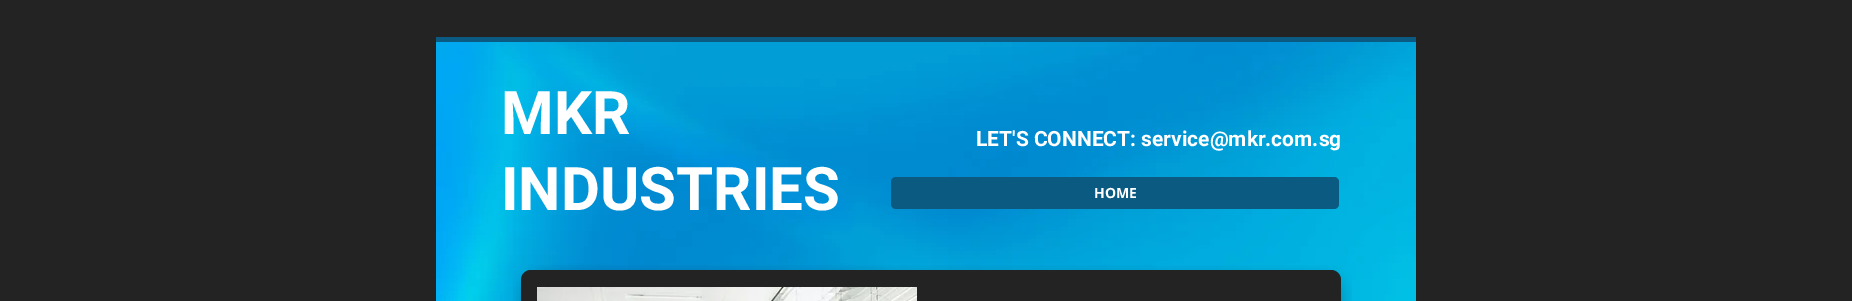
%!PS-Adobe-3.0
%%BoundingBox: 0 0 1852 301
%%LanguageLevel: 3
%%Pages: 1
%%EndComments
%%BeginProlog
/setink { dup -16 bitshift 255 div exch dup -8 bitshift 255 and 255 div exch 255 and 255 div setrgbcolor } def
/usefont { [ exch dup neg 0 0 3 -1 roll 0 0 ] selectfont } def
/rrect { 5 dict begin { /r /h /w /y /x } { exch def } forall
  x r add y moveto x w add y 2 copy h add r arct x w add y h add x 1 index r arct
  x y h add x y r arct x y 2 copy exch w add exch r arct closepath end } def
/drawimage { 5 dict begin { /h /w /y /x /name } { exch def } forall
  gsave x y translate w h scale
  w h 8 [w 0 0 h 0 0] name (r) file false 3 colorimage grestore end } def
%%EndProlog
%%BeginSetup
<< /PageSize [1852 301] >> setpagedevice
%%EndSetup
%%Page: 1 1
0 301 translate 1 -1 scale
4 setmiterlimit
16#232323 setink
0 0 1852 301 rectfill
16#0A5A82 setink
436 37 980 5 rectfill
(img1.raw) 436 42 980 259 drawimage
/Roboto-Bold 60 usefont
16#FFFFFF setink
501 134 moveto (MKR) show
501 210 moveto (INDUSTRIES) show
/Roboto-Bold 21 usefont
976 146 moveto (LET'S CONNECT: service@mkr.com.sg) show
16#0A5A82 setink
891 177 448 32 5 rrect fill
/OpenSans-Bold 14 usefont
16#FFFFFF setink
1094 198 moveto (HOME) show
(img2.raw) 513 265 839 36 drawimage
16#232323 setink
521 270 820 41 10 rrect fill
(img3.raw) 537 287 380 14 drawimage
showpage
%%EOF
